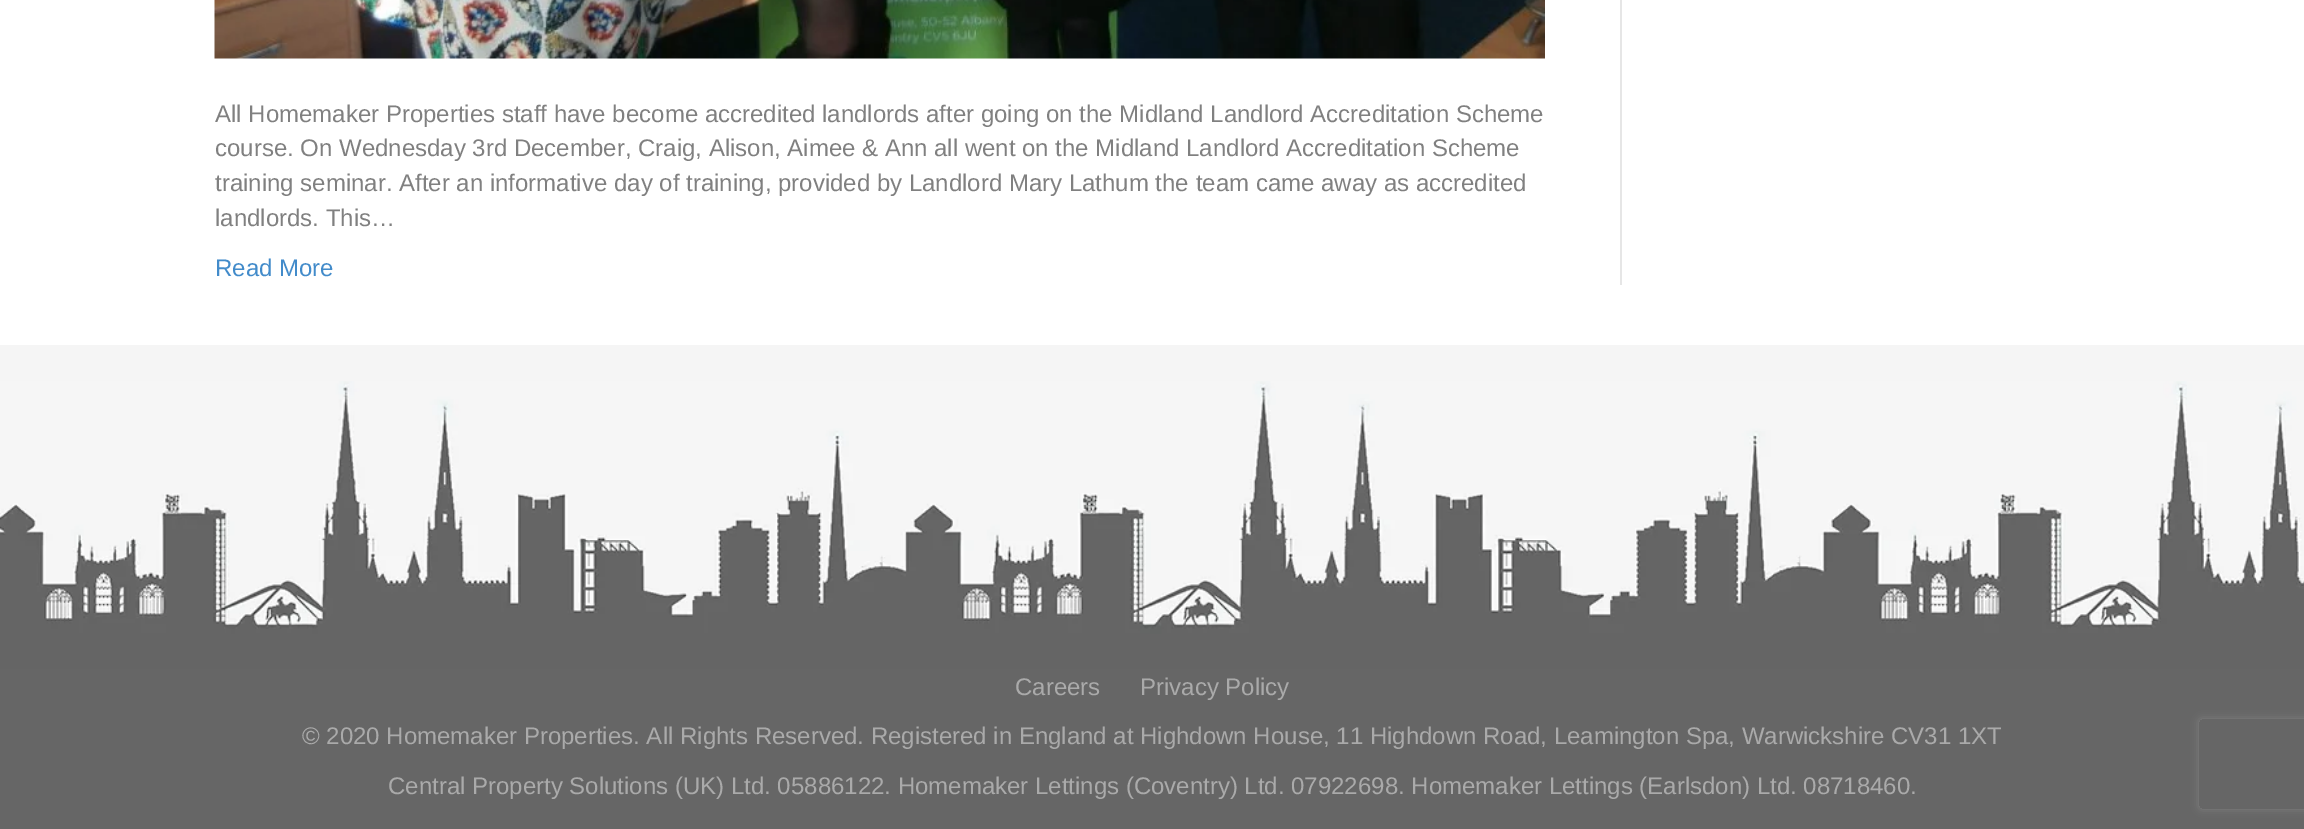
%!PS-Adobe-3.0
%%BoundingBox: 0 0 2304 829
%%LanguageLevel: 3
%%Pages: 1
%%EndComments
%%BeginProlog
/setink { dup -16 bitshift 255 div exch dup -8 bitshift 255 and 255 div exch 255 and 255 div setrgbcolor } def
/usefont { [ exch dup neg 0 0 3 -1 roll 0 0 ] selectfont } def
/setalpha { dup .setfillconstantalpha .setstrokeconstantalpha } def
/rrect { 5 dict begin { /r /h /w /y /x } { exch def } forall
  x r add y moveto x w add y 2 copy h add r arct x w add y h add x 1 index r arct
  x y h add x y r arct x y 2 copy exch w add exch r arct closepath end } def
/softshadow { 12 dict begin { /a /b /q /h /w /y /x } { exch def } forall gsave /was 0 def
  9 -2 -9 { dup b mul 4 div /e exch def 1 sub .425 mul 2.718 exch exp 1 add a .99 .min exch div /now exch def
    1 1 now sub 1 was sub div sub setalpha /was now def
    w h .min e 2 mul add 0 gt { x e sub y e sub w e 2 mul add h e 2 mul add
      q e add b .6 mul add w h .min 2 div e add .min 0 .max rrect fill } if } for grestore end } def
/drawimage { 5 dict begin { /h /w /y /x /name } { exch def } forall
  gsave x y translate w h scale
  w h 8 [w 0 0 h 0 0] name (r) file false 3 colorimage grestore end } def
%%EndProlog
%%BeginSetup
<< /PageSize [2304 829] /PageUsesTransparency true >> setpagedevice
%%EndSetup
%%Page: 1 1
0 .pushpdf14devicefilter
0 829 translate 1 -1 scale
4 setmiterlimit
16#FFFFFF setink
0 0 2304 829 rectfill
16#E6E6E6 setink
1620 0 2 285 rectfill
(img1.raw) 214 0 1331 59 drawimage
/LiberationSans-Regular 24 usefont
16#808080 setink
[
    [(All Homemaker Properties staff have become accredited landlords after going on the Midland Landlord Accreditation Scheme) 215 122]
    [(course. On Wednesday 3rd December, Craig, Alison, Aimee & Ann all went on the Midland Landlord Accreditation Scheme) 215 156]
    [(training seminar. After an informative day of training, provided by Landlord Mary Lathum the team came away as accredited) 215 191]
    [(landlords. This…) 215 226]
] { aload pop moveto show } forall
16#428BCA setink
215 276 moveto (Read More) show
16#F5F5F5 setink
0 345 2304 36 rectfill
(img2.raw) 0 381 2304 288 drawimage
16#666666 setink
0 669 2304 160 rectfill
16#AAAAAA setink
[
    [(Careers) 1015 695]
    [(Privacy Policy) 1140 695]
    [(© 2020 Homemaker Properties. All Rights Reserved. Registered in England at Highdown House, 11 Highdown Road, Leamington Spa, Warwickshire CV31 1XT) 302 744]
    [(Central Property Solutions \(UK\) Ltd. 05886122. Homemaker Lettings \(Coventry\) Ltd. 07922698. Homemaker Lettings \(Earlsdon\) Ltd. 08718460.) 388 794]
] { aload pop moveto show } forall
gsave
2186 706 moveto 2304 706 lineto 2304 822 lineto 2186 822 lineto closepath 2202 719 moveto 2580 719 lineto 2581.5 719 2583 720.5 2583 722 curveto 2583 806 lineto 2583 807.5 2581.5 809 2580 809 curveto 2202 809 lineto 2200.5 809 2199 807.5 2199 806 curveto 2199 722 lineto 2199 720.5 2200.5 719 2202 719 curveto closepath eoclip newpath
16#808080 setink
2199 719 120 90 3 4 1 softshadow
grestore
.poppdf14devicefilter showpage
%%EOF
